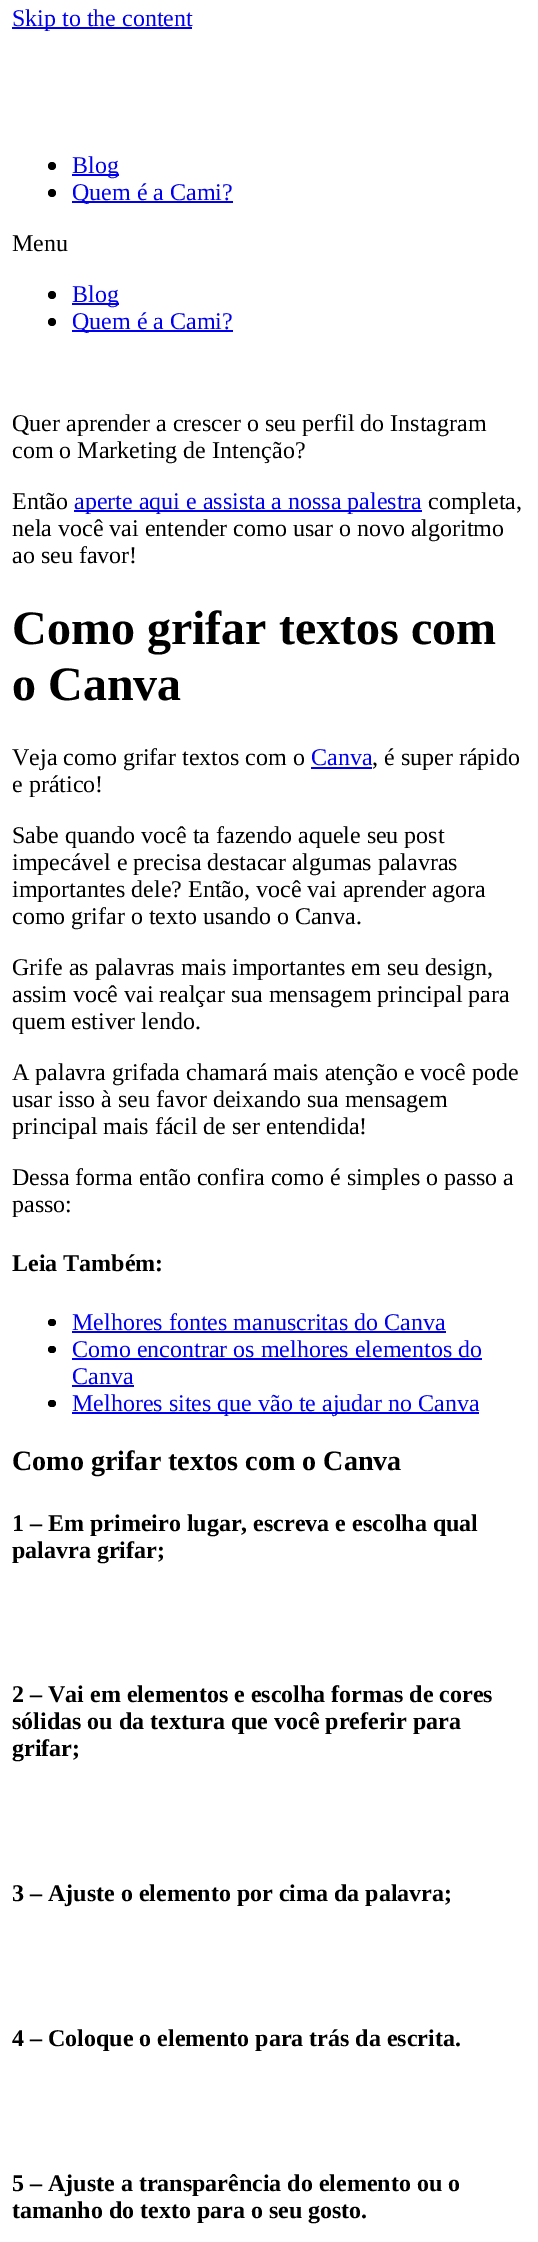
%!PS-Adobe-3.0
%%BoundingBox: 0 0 538 2242
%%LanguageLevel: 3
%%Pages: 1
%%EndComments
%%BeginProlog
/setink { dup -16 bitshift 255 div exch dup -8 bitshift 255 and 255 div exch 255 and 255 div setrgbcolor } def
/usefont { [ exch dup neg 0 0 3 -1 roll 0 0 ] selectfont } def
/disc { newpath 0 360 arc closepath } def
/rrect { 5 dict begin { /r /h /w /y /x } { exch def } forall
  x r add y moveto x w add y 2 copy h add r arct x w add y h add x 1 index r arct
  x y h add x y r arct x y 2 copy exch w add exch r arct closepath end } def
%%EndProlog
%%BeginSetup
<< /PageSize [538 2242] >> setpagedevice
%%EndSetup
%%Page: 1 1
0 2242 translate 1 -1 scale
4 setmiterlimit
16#FFFFFF setink
0 0 538 2242 rectfill
16#0000EE setink
12 27 180 2 rectfill
/LiberationSerif-Regular 24 usefont
12 26 moveto (Skip to the content) show
16#000000 setink
52 166 4 disc fill
16#0000EE setink
72 174 47 2 rectfill
72 173 moveto (Blog) show
16#000000 setink
52 193 4 disc fill
16#0000EE setink
72 201 161 2 rectfill
72 200 moveto (Quem é a Cami?) show
16#000000 setink
12 251 moveto (Menu) show
52 295 4 disc fill
16#0000EE setink
72 303 47 2 rectfill
72 302 moveto (Blog) show
16#000000 setink
52 322 4 disc fill
16#0000EE setink
72 330 161 2 rectfill
72 329 moveto (Quem é a Cami?) show
16#000000 setink
[
    [(Quer aprender a crescer o seu perfil do Instagram) 12 431]
    [(com o Marketing de Intenção?) 12 458]
    [(Então) 12 509]
] { aload pop moveto show } forall
16#0000EE setink
74 510 348 2 rectfill
74 509 moveto (aperte aqui e assista a nossa palestra) show
16#000000 setink
[
    [(completa,) 428 509]
    [(nela você vai entender como usar o novo algoritmo) 12 536]
    [(ao seu favor!) 12 563]
] { aload pop moveto show } forall
/LiberationSerif-Bold 48 usefont
12 644 moveto (Como grifar textos com) show
12 700 moveto (o Canva) show
/LiberationSerif-Regular 24 usefont
12 765 moveto (Veja como grifar textos com o) show
16#0000EE setink
311 765 moveto (Canva) show
311 767 61 2 rectfill
16#000000 setink
[
    [(, é super rápido) 372 765]
    [(e prático!) 12 792]
    [(Sabe quando você ta fazendo aquele seu post) 12 843]
    [(impecável e precisa destacar algumas palavras) 12 870]
    [(importantes dele? Então, você vai aprender agora) 12 897]
    [(como grifar o texto usando o Canva.) 12 924]
    [(Grife as palavras mais importantes em seu design,) 12 975]
    [(assim você vai realçar sua mensagem principal para) 12 1002]
    [(quem estiver lendo.) 12 1029]
    [(A palavra grifada chamará mais atenção e você pode) 12 1080]
    [(usar isso à seu favor deixando sua mensagem) 12 1107]
    [(principal mais fácil de ser entendida!) 12 1134]
    [(Dessa forma então confira como é simples o passo a) 12 1185]
    [(passo:) 12 1212]
] { aload pop moveto show } forall
/LiberationSerif-Bold 24 usefont
12 1271 moveto (Leia Também:) show
48 1319 8 7 3.5 rrect fill
/LiberationSerif-Regular 24 usefont
16#0000EE setink
72 1330 moveto (Melhores fontes manuscritas do Canva) show
72 1331 374 2 rectfill
16#000000 setink
48 1346 8 7 3.5 rrect fill
16#0000EE setink
72 1357 moveto (Como encontrar os melhores elementos do) show
72 1358 410 2 rectfill
72 1384 moveto (Canva) show
72 1385 62 2 rectfill
16#000000 setink
48 1400 8 7 3.5 rrect fill
16#0000EE setink
72 1412 407 2 rectfill
72 1411 moveto (Melhores sites que vão te ajudar no Canva) show
/LiberationSerif-Bold 28.1 usefont
16#000000 setink
12 1470 moveto (Como grifar textos com o Canva) show
/LiberationSerif-Bold 24 usefont
[
    [(1 – Em primeiro lugar, escreva e escolha qual) 12 1531]
    [(palavra grifar;) 12 1558]
    [(2 – Vai em elementos e escolha formas de cores) 12 1702]
    [(sólidas ou da textura que você preferir para) 12 1729]
    [(grifar;) 12 1756]
    [(3 – Ajuste o elemento por cima da palavra;) 12 1901]
    [(4 – Coloque o elemento para trás da escrita.) 12 2046]
    [(5 – Ajuste a transparência do elemento ou o) 12 2191]
    [(tamanho do texto para o seu gosto.) 12 2218]
] { aload pop moveto show } forall
showpage
%%EOF
